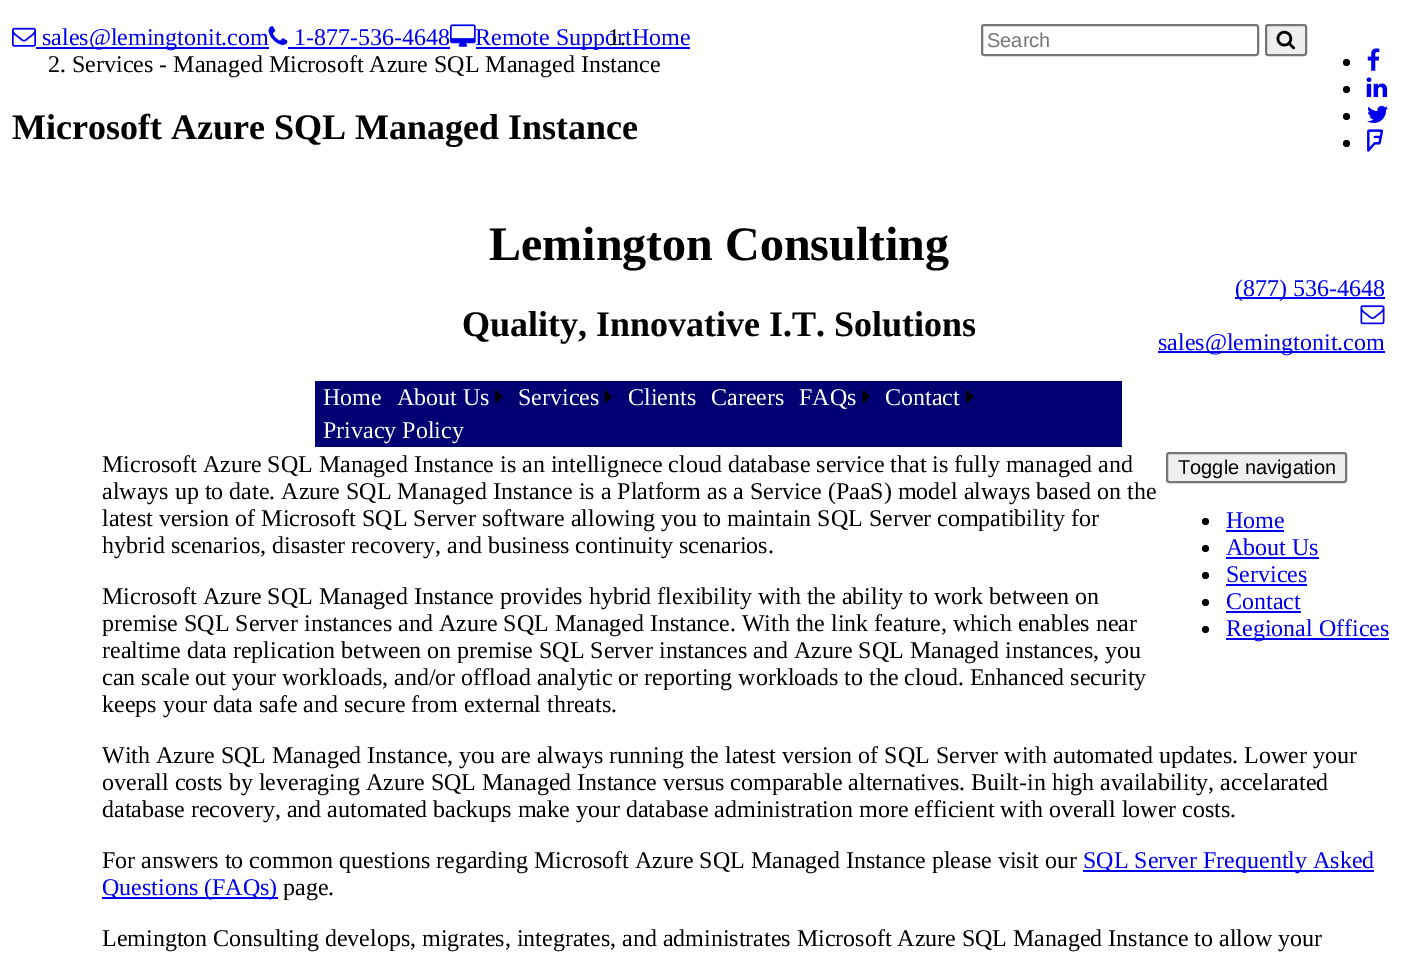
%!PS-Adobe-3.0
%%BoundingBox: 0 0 1401 963
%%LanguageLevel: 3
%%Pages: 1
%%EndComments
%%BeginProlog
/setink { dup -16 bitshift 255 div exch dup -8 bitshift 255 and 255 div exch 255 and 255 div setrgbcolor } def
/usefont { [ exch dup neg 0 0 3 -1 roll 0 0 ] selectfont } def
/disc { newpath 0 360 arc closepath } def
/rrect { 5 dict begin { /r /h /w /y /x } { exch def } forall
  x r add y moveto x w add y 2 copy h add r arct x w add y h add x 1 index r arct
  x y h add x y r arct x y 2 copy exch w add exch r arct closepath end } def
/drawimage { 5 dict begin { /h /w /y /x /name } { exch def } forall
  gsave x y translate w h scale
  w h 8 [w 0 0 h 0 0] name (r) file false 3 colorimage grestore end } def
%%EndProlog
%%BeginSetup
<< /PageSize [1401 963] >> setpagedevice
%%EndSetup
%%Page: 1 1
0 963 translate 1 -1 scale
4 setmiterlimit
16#FFFFFF setink
0 0 1401 963 rectfill
(img1.raw) 12 27 24 20 drawimage
16#0000EE setink
36 47 233 2 rectfill
/LiberationSerif-Regular 24 usefont
42 45 moveto (sales@lemingtonit.com) show
(img2.raw) 268 26 20 19 drawimage
294 45 moveto (1-877-536-4648) show
288 47 162 2 rectfill
(img3.raw) 450 24 26 23 drawimage
476 47 214 2 rectfill
475 45 moveto (Remote SupportHome) show
16#767676 setink
2 setlinewidth
982 25 276 30 2 rrect stroke
/LiberationSans-Regular 20 usefont
16#757575 setink
987 47 moveto (Search) show
16#EFEFEF setink
1266 25 40 30 2 rrect gsave fill grestore
16#767676 setink
stroke
(img4.raw) 1276 30 19 20 drawimage
16#000000 setink
1346.5 62.5 3.5 disc fill
(img5.raw) 1367 48 13 23 drawimage
1346.5 89.5 3.5 disc fill
(img6.raw) 1366 77 22 21 drawimage
1346.5 116.5 3.5 disc fill
(img7.raw) 1367 105 21 18 drawimage
1346.5 143.5 3.5 disc fill
(img8.raw) 1367 129 16 23 drawimage
/LiberationSerif-Bold 48 usefont
489 260 moveto (Lemington Consulting) show
/LiberationSerif-Bold 36 usefont
462 336 moveto (Quality, Innovative I.T. Solutions) show
16#0000EE setink
1235 297 150 2 rectfill
/LiberationSerif-Regular 24 usefont
1235 296 moveto (\(877\) 536-4648) show
(img9.raw) 1360 305 25 20 drawimage
1158 351 227 2 rectfill
1158 350 moveto (sales@lemingtonit.com) show
16#000073 setink
315 381 807 66 rectfill
16#FFFFFF setink
323 405 moveto (Home) show
(img10.raw) 494 389 9 15 drawimage
397 405 moveto (About Us) show
(img11.raw) 604 389 9 15 drawimage
[
    [(Services) 518 405]
    [(Clients) 628 405]
    [(Careers) 711 405]
] { aload pop moveto show } forall
(img12.raw) 862 389 9 15 drawimage
799 405 moveto (FAQs) show
(img10.raw) 965 389 9 15 drawimage
885 405 moveto (Contact) show
323 438 moveto (Privacy Policy) show
16#EFEFEF setink
1167 453 179 29 2 rrect gsave fill grestore
16#767676 setink
stroke
/LiberationSans-Regular 20 usefont
16#000000 setink
1178 474 moveto (Toggle navigation) show
1205.5 521.5 3.5 disc fill
/LiberationSerif-Regular 24 usefont
16#0000EE setink
1226 528 moveto (Home) show
1226 530 58 2 rectfill
16#000000 setink
1205.5 548.5 3.5 disc fill
16#0000EE setink
1226 555 moveto (About Us) show
1226 557 93 2 rectfill
16#000000 setink
1205.5 575.5 3.5 disc fill
16#0000EE setink
1226 582 moveto (Services) show
1226 584 81 2 rectfill
16#000000 setink
1205.5 602.5 3.5 disc fill
16#0000EE setink
1226 609 moveto (Contact) show
1226 611 75 2 rectfill
16#000000 setink
1205.5 629.5 3.5 disc fill
16#0000EE setink
1226 638 163 2 rectfill
1226 636 moveto (Regional Offices) show
16#000000 setink
608 45 moveto (1.) show
48 72 moveto (2. Services - Managed Microsoft Azure SQL Managed Instance) show
/LiberationSerif-Bold 36 usefont
12 139 moveto (Microsoft Azure SQL Managed Instance) show
/LiberationSerif-Regular 24 usefont
[
    [(Microsoft Azure SQL Managed Instance is an intellignece cloud database service that is fully managed and) 102 472]
    [(always up to date. Azure SQL Managed Instance is a Platform as a Service \(PaaS\) model always based on the) 102 499]
    [(latest version of Microsoft SQL Server software allowing you to maintain SQL Server compatibility for) 102 526]
    [(hybrid scenarios, disaster recovery, and business continuity scenarios.) 102 553]
    [(Microsoft Azure SQL Managed Instance provides hybrid flexibility with the ability to work between on) 102 604]
    [(premise SQL Server instances and Azure SQL Managed Instance. With the link feature, which enables near) 102 631]
    [(realtime data replication between on premise SQL Server instances and Azure SQL Managed instances, you) 102 658]
    [(can scale out your workloads, and/or offload analytic or reporting workloads to the cloud. Enhanced security) 102 685]
    [(keeps your data safe and secure from external threats.) 102 712]
    [(With Azure SQL Managed Instance, you are always running the latest version of SQL Server with automated updates. Lower your) 102 763]
    [(overall costs by leveraging Azure SQL Managed Instance versus comparable alternatives. Built-in high availability, accelarated) 102 790]
    [(database recovery, and automated backups make your database administration more efficient with overall lower costs.) 102 817]
    [(For answers to common questions regarding Microsoft Azure SQL Managed Instance please visit our) 102 868]
] { aload pop moveto show } forall
16#0000EE setink
1083 870 291 2 rectfill
1083 868 moveto (SQL Server Frequently Asked) show
102 897 176 2 rectfill
102 895 moveto (Questions \(FAQs\)) show
16#000000 setink
283 895 moveto (page.) show
102 946 moveto (Lemington Consulting develops, migrates, integrates, and administrates Microsoft Azure SQL Managed Instance to allow your) show
showpage
%%EOF
